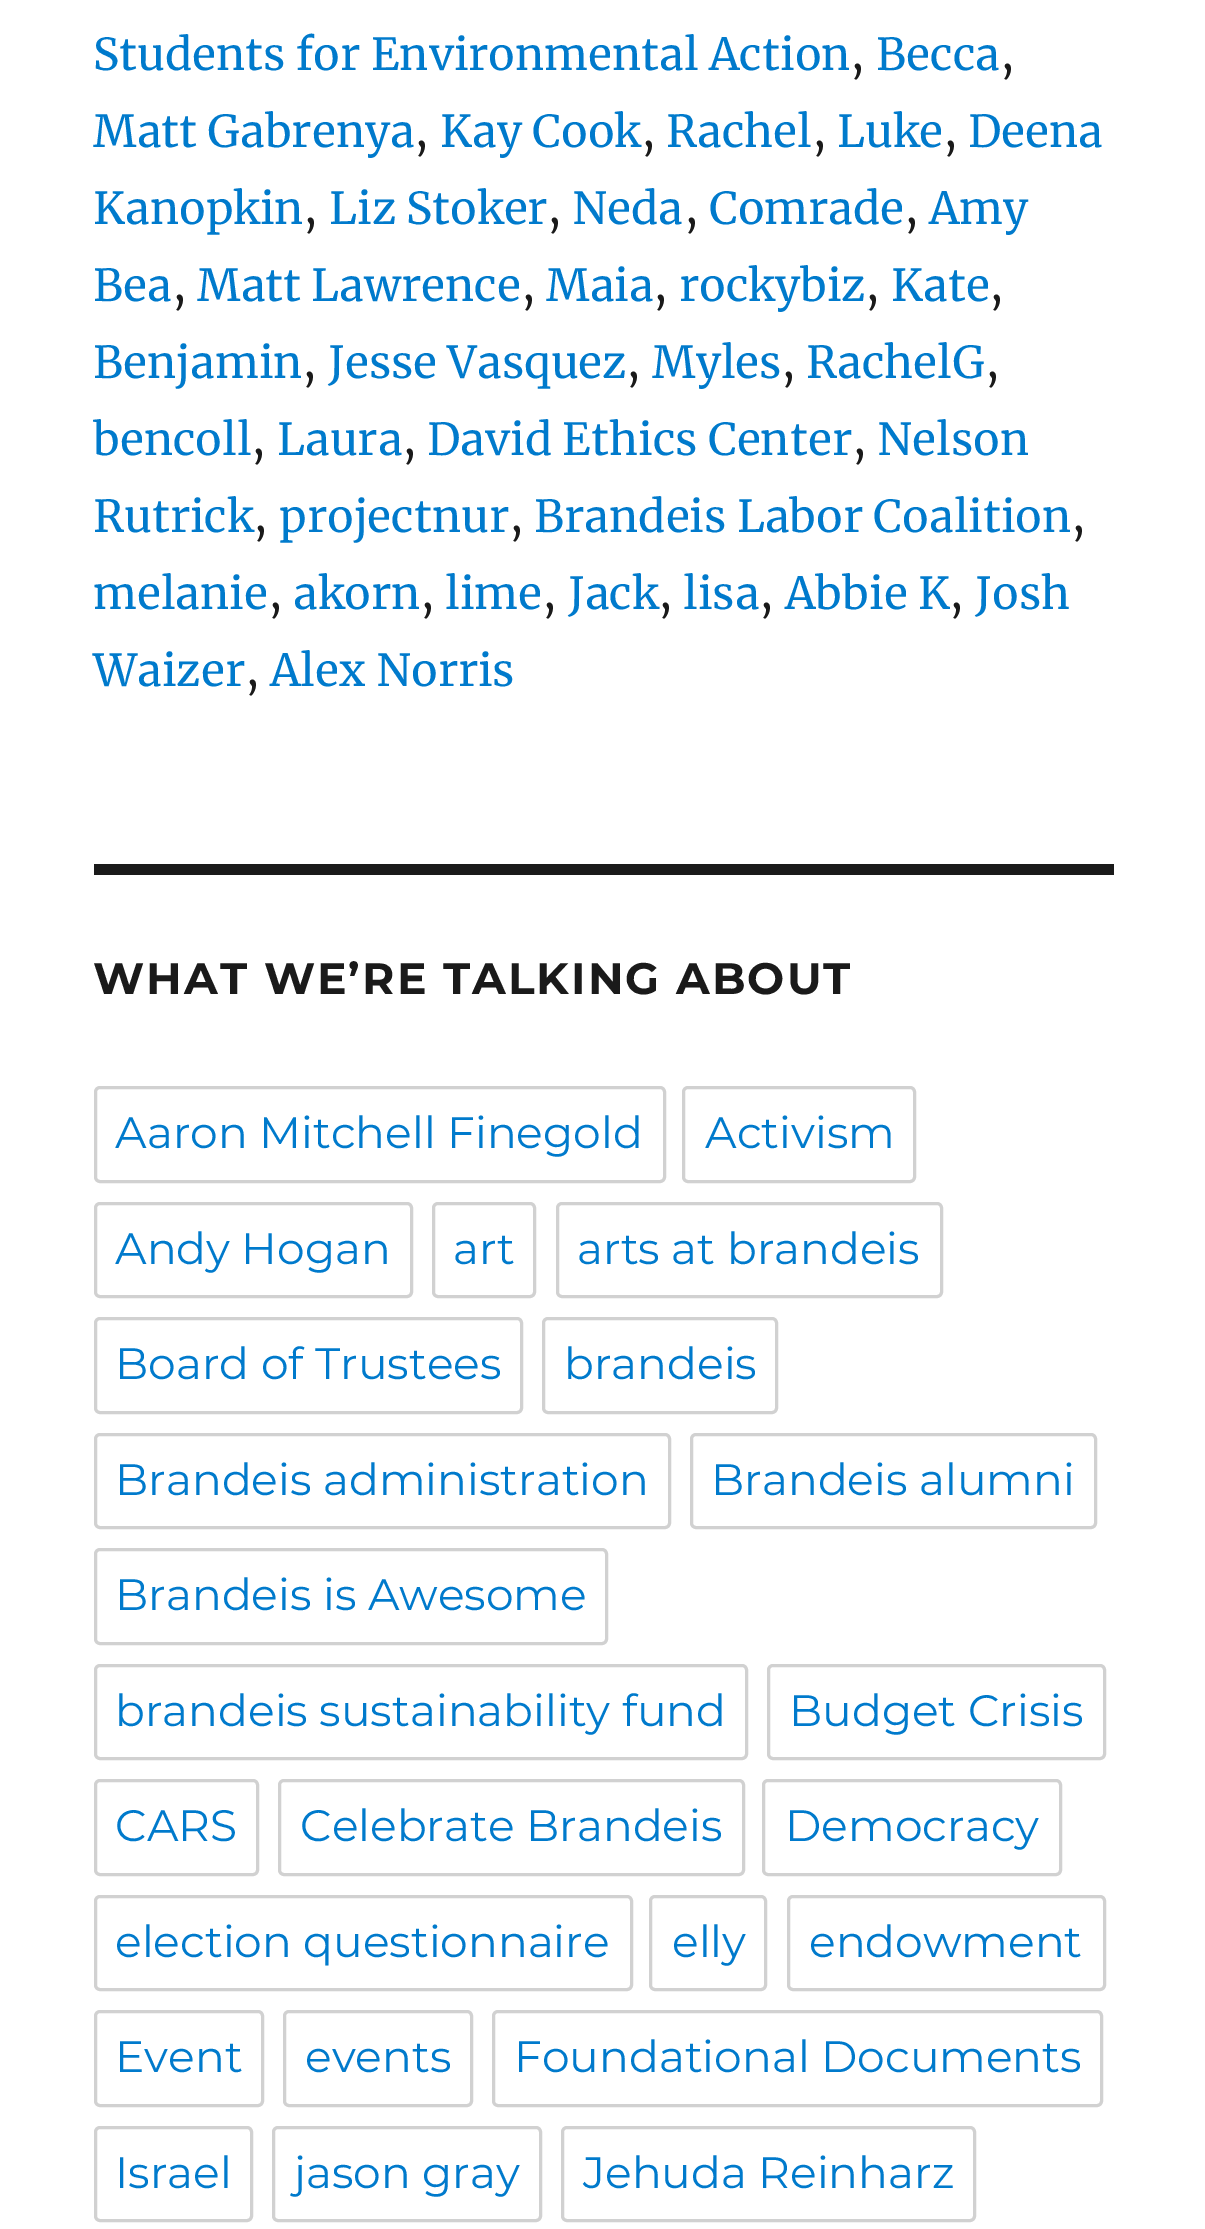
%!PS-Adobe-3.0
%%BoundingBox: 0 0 1205 2229
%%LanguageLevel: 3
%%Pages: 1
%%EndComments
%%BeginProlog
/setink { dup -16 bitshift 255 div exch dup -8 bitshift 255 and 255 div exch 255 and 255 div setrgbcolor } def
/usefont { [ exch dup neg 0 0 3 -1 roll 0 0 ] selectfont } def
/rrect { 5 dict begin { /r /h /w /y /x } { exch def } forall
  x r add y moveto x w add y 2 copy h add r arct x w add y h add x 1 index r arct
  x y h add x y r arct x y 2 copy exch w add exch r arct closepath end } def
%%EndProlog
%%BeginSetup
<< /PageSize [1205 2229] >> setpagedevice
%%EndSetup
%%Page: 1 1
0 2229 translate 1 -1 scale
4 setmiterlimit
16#FFFFFF setink
0 0 1205 2229 rectfill
/Merriweather-Regular 44 usefont
16#007ACC setink
93 70 moveto (Students for Environmental Action) show
16#1A1A1A setink
850 70 moveto (,) show
16#007ACC setink
876 70 moveto (Becca) show
16#1A1A1A setink
1000 70 moveto (,) show
16#007ACC setink
93 147 moveto (Matt Gabrenya) show
16#1A1A1A setink
414 147 moveto (,) show
16#007ACC setink
440 147 moveto (Kay Cook) show
16#1A1A1A setink
641 147 moveto (,) show
16#007ACC setink
666 147 moveto (Rachel) show
16#1A1A1A setink
812 147 moveto (,) show
16#007ACC setink
837 147 moveto (Luke) show
16#1A1A1A setink
943 147 moveto (,) show
16#007ACC setink
968 147 moveto (Deena) show
93 224 moveto (Kanopkin) show
16#1A1A1A setink
303 224 moveto (,) show
16#007ACC setink
329 224 moveto (Liz Stoker) show
16#1A1A1A setink
547 224 moveto (,) show
16#007ACC setink
572 224 moveto (Neda) show
16#1A1A1A setink
684 224 moveto (,) show
16#007ACC setink
709 224 moveto (Comrade) show
16#1A1A1A setink
904 224 moveto (,) show
16#007ACC setink
929 224 moveto (Amy) show
93 301 moveto (Bea) show
16#1A1A1A setink
172 301 moveto (,) show
16#007ACC setink
197 301 moveto (Matt Lawrence) show
16#1A1A1A setink
521 301 moveto (,) show
16#007ACC setink
546 301 moveto (Maia) show
16#1A1A1A setink
653 301 moveto (,) show
16#007ACC setink
679 301 moveto (rockybiz) show
16#1A1A1A setink
865 301 moveto (,) show
16#007ACC setink
891 301 moveto (Kate) show
16#1A1A1A setink
989 301 moveto (,) show
16#007ACC setink
93 378 moveto (Benjamin) show
16#1A1A1A setink
302 378 moveto (,) show
16#007ACC setink
328 378 moveto (Jesse Vasquez) show
16#1A1A1A setink
626 378 moveto (,) show
16#007ACC setink
652 378 moveto (Myles) show
16#1A1A1A setink
781 378 moveto (,) show
16#007ACC setink
806 378 moveto (RachelG) show
16#1A1A1A setink
985 378 moveto (,) show
16#007ACC setink
93 455 moveto (bencoll) show
16#1A1A1A setink
251 455 moveto (,) show
16#007ACC setink
277 455 moveto (Laura) show
16#1A1A1A setink
402 455 moveto (,) show
16#007ACC setink
427 455 moveto (David Ethics Center) show
16#1A1A1A setink
852 455 moveto (,) show
16#007ACC setink
877 455 moveto (Nelson) show
93 532 moveto (Rutrick) show
16#1A1A1A setink
253 532 moveto (,) show
16#007ACC setink
279 532 moveto (projectnur) show
16#1A1A1A setink
509 532 moveto (,) show
16#007ACC setink
534 532 moveto (Brandeis Labor Coalition) show
16#1A1A1A setink
1071 532 moveto (,) show
16#007ACC setink
93 609 moveto (melanie) show
16#1A1A1A setink
268 609 moveto (,) show
16#007ACC setink
293 609 moveto (akorn) show
16#1A1A1A setink
420 609 moveto (,) show
16#007ACC setink
445 609 moveto (lime) show
16#1A1A1A setink
542 609 moveto (,) show
16#007ACC setink
568 609 moveto (Jack) show
16#1A1A1A setink
658 609 moveto (,) show
16#007ACC setink
683 609 moveto (lisa) show
16#1A1A1A setink
759 609 moveto (,) show
16#007ACC setink
785 609 moveto (Abbie K) show
16#1A1A1A setink
949 609 moveto (,) show
16#007ACC setink
975 609 moveto (Josh) show
93 686 moveto (Waizer) show
16#1A1A1A setink
245 686 moveto (,) show
16#007ACC setink
270 686 moveto (Alex Norris) show
16#1A1A1A setink
94 864 1020 11 rectfill
/Montserrat-Thin 44 usefont
93 994 moveto 2.1 0 (WHAT WE’RE TALKING ABOUT) ashow
16#D1D1D1 setink
3 setlinewidth
95.5 1087.5 569 94 4.5 rrect stroke
/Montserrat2-Thin 44 usefont
16#007ACC setink
115 1148 moveto (Aaron Mitchell Finegold) show
16#D1D1D1 setink
683.5 1087.5 231 94 4.5 rrect stroke
16#007ACC setink
705 1148 moveto (Activism) show
16#D1D1D1 setink
95.5 1203.5 316 93 4.5 rrect stroke
16#007ACC setink
115 1264 moveto (Andy Hogan) show
16#D1D1D1 setink
433.5 1203.5 101 93 4.5 rrect stroke
16#007ACC setink
453 1264 moveto (art) show
16#D1D1D1 setink
557.5 1203.5 384 93 4.5 rrect stroke
16#007ACC setink
577 1264 moveto (arts at brandeis) show
16#D1D1D1 setink
95.5 1318.5 426 94 4.5 rrect stroke
16#007ACC setink
115 1379 moveto (Board of Trustees) show
16#D1D1D1 setink
543.5 1318.5 233 94 4.5 rrect stroke
16#007ACC setink
564 1379 moveto (brandeis) show
16#D1D1D1 setink
95.5 1434.5 574 93 4.5 rrect stroke
16#007ACC setink
115 1495 moveto (Brandeis administration) show
16#D1D1D1 setink
691.5 1434.5 404 93 4.5 rrect stroke
16#007ACC setink
711 1495 moveto (Brandeis alumni) show
16#D1D1D1 setink
95.5 1549.5 511 94 4.5 rrect stroke
16#007ACC setink
115 1610 moveto (Brandeis is Awesome) show
16#D1D1D1 setink
95.5 1665.5 651 93 4.5 rrect stroke
16#007ACC setink
115 1726 moveto (brandeis sustainability fund) show
16#D1D1D1 setink
768.5 1665.5 336 93 4.5 rrect stroke
16#007ACC setink
789 1726 moveto (Budget Crisis) show
16#D1D1D1 setink
95.5 1780.5 162 94 4.5 rrect stroke
16#007ACC setink
115 1841 moveto (CARS) show
16#D1D1D1 setink
279.5 1780.5 464 94 4.5 rrect stroke
16#007ACC setink
300 1841 moveto (Celebrate Brandeis) show
16#D1D1D1 setink
763.5 1780.5 297 94 4.5 rrect stroke
16#007ACC setink
785 1841 moveto (Democracy) show
16#D1D1D1 setink
95.5 1896.5 536 93 4.5 rrect stroke
16#007ACC setink
115 1957 moveto (election questionnaire) show
16#D1D1D1 setink
650.5 1896.5 115 93 4.5 rrect stroke
16#007ACC setink
672 1957 moveto (elly) show
16#D1D1D1 setink
788.5 1896.5 316 93 4.5 rrect stroke
16#007ACC setink
809 1957 moveto (endowment) show
16#D1D1D1 setink
95.5 2011.5 167 94 4.5 rrect stroke
16#007ACC setink
115 2072 moveto (Event) show
16#D1D1D1 setink
284.5 2011.5 187 94 4.5 rrect stroke
16#007ACC setink
305 2072 moveto (events) show
16#D1D1D1 setink
493.5 2011.5 608 94 4.5 rrect stroke
16#007ACC setink
514 2072 moveto (Foundational Documents) show
16#D1D1D1 setink
95.5 2127.5 156 93 4.5 rrect stroke
16#007ACC setink
115 2188 moveto (Israel) show
16#D1D1D1 setink
273.5 2127.5 267 93 4.5 rrect stroke
16#007ACC setink
294 2188 moveto (jason gray) show
16#D1D1D1 setink
562.5 2127.5 412 93 4.5 rrect stroke
16#007ACC setink
583 2188 moveto (Jehuda Reinharz) show
showpage
%%EOF
